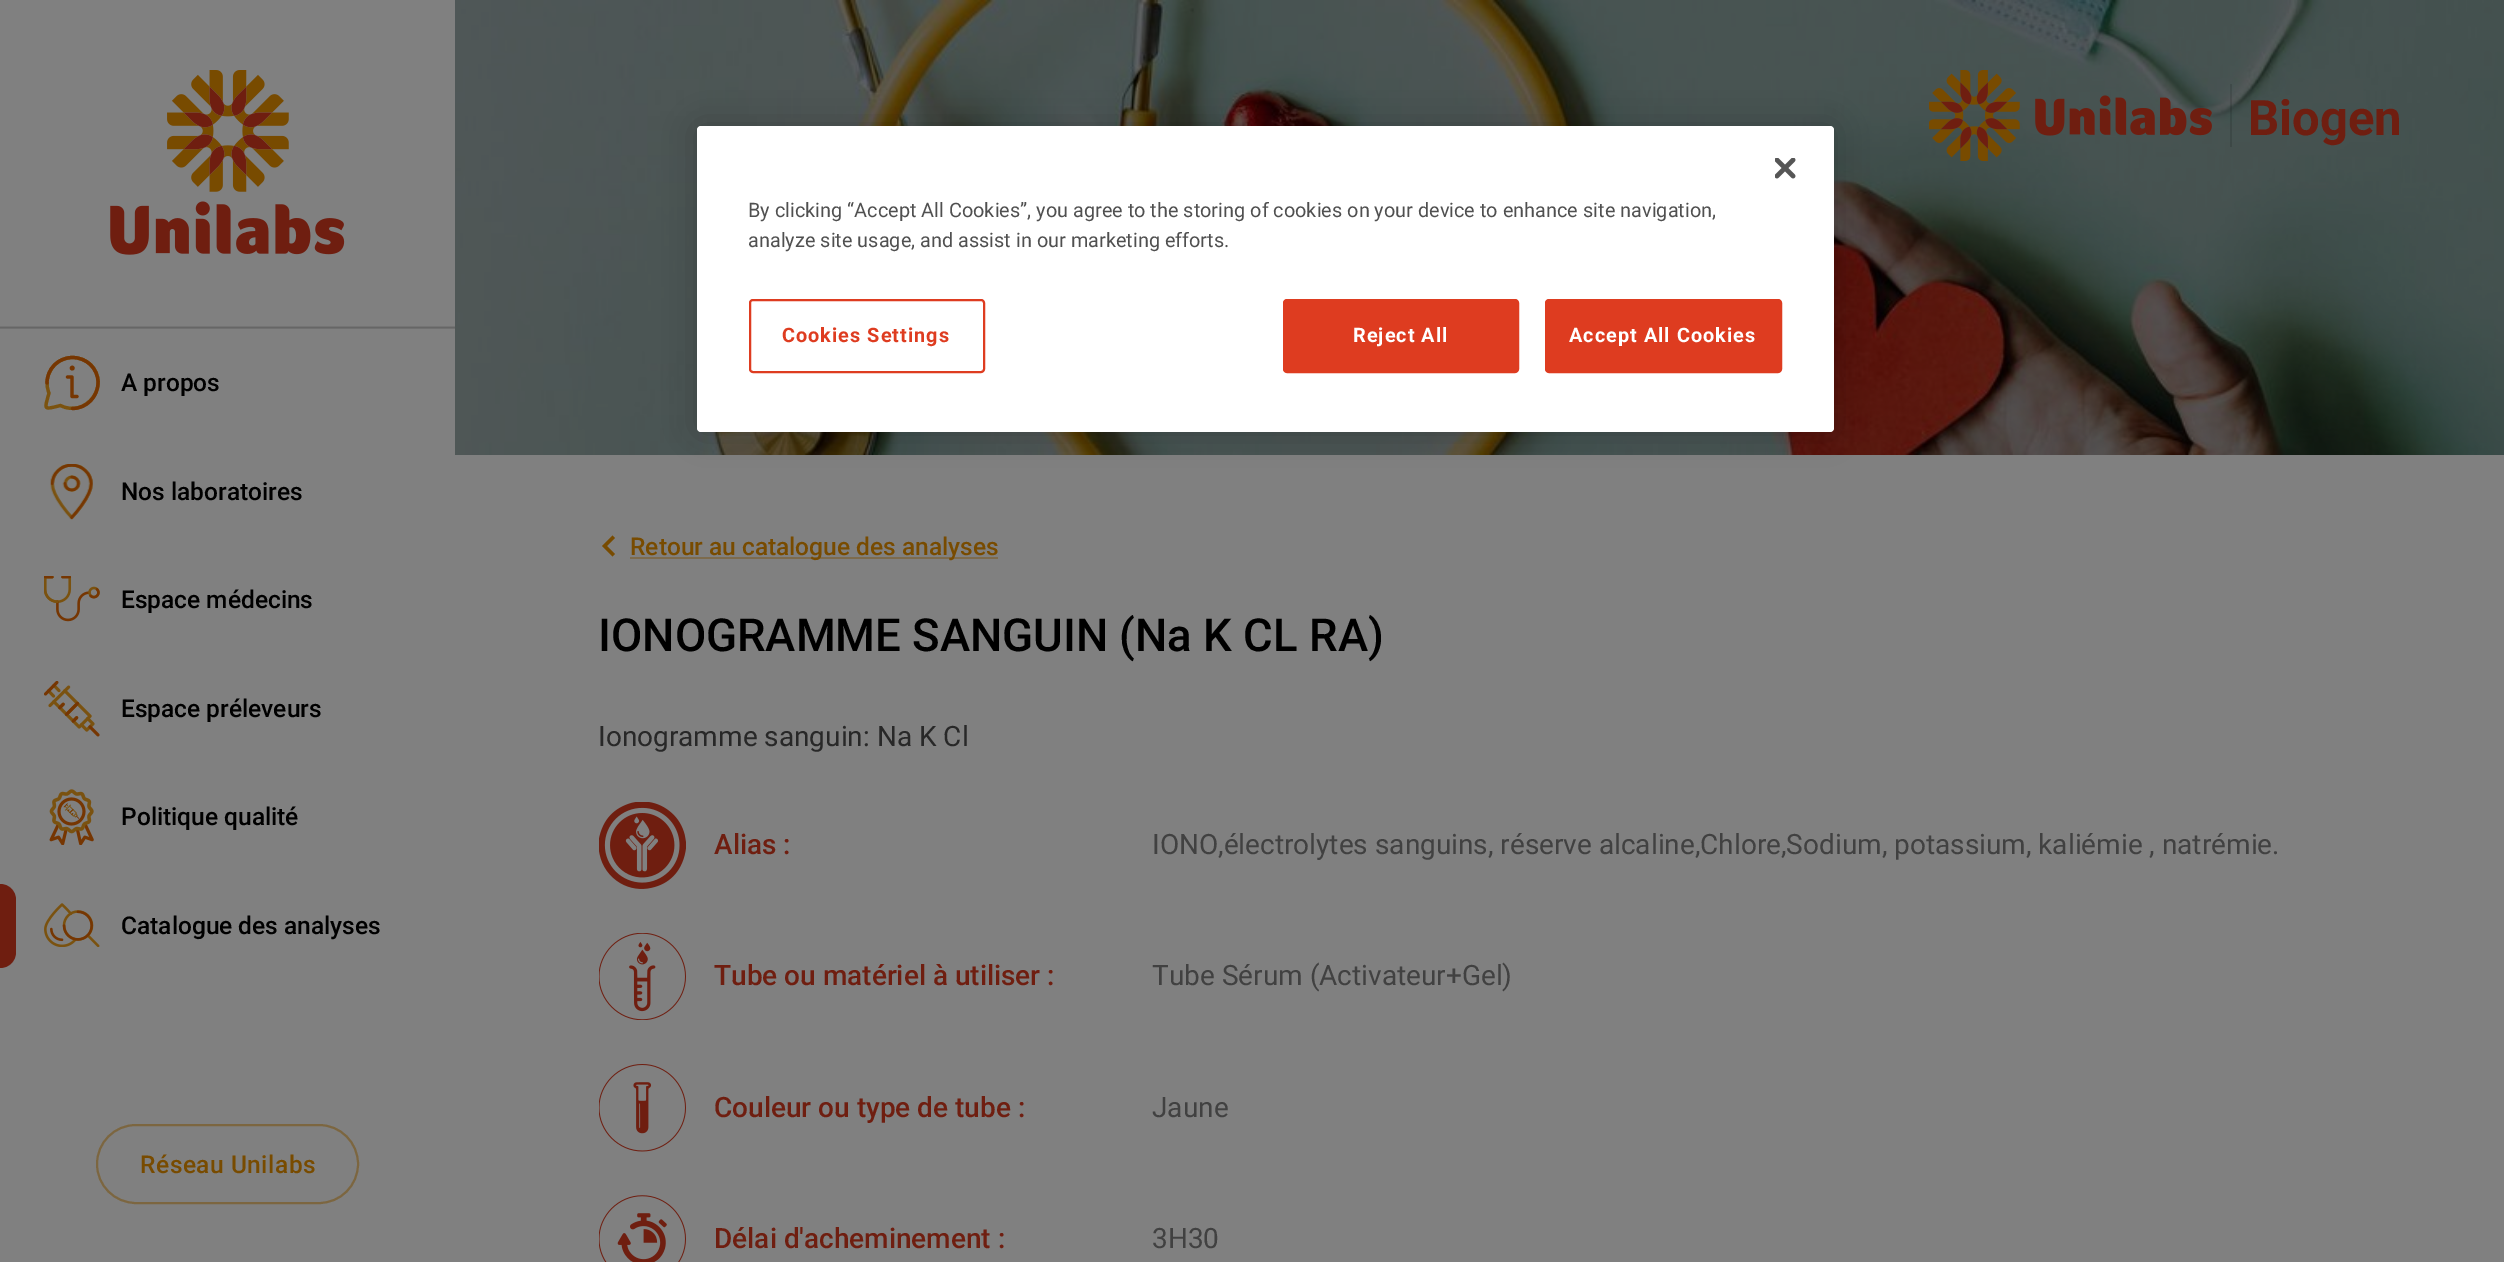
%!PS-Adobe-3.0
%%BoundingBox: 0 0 2504 1262
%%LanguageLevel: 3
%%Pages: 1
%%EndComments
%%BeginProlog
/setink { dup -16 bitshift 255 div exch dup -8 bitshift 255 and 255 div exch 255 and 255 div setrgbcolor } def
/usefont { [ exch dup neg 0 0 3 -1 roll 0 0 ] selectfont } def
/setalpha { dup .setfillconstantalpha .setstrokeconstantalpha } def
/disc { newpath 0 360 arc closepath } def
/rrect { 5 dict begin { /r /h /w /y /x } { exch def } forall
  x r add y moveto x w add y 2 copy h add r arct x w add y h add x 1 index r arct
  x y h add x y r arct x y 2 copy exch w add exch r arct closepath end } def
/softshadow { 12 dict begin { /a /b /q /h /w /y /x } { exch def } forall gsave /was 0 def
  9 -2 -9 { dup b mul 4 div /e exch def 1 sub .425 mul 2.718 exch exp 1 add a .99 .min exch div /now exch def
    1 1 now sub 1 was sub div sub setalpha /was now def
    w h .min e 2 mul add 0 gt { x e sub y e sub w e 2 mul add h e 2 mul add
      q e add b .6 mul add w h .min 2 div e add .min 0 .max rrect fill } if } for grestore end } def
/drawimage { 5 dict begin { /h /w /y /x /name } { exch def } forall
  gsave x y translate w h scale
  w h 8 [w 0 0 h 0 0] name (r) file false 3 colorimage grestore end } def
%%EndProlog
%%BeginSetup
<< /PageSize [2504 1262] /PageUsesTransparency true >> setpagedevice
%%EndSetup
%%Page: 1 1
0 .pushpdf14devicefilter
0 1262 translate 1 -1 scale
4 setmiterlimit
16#808080 setink
0 0 2504 1262 rectfill
[
    [0 328 455 1 16#707070]
    [0 326 455 1 16#747474]
    [0 327 455 1 16#666666]
] { aload pop setink rectfill } forall
(img1.raw) 110 70 235 185 drawimage
16#763602 setink
3.2 setlinewidth
1 setlinecap
1 setlinejoin
67.5 377 moveto 72 377 lineto 72 396.5 lineto 77 396.5 lineto stroke
16#7B5310 setink
72.5 357.5 moveto 54 357.5 42 376.5 49 393 curveto 44.5 410 42.5 410 60.5 405.5 curveto 85.5 418.5 111.5 385.5 90.5 364.5 curveto 85.5 360 79 357.5 72.5 357.5 curveto closepath stroke
16#763602 setink
72.2 368.1 2.4 disc fill
72.5 408.5 moveto 86.5 408.5 98 397 98 382.5 curveto 98 368.5 86.5 357.5 72.5 357.5 curveto 58.5 357.5 47 368.5 47 383 curveto stroke
/Roboto-Medium 24.5 usefont
16#000000 setink
121 391 moveto (A propos) show
(img2.raw) 50 464 43 56 drawimage
121 500 moveto (Nos laboratoires) show
(img3.raw) 44 576 56 46 drawimage
121 608 moveto (Espace médecins) show
(img4.raw) 44 681 56 56 drawimage
121 717 moveto (Espace préleveurs) show
(img5.raw) 49 789 45 56 drawimage
121 825 moveto (Politique qualité) show
16#6F1E10 setink
0 884 moveto 9 884 16 891 16 900 curveto 16 952 lineto 16 961 9 968 0 968 curveto closepath fill
(img6.raw) 44 903 56 44 drawimage
16#000000 setink
121 934 moveto (Catalogue des analyses) show
16#7C6640 setink
2 setlinewidth
0 setlinecap
0 setlinejoin
97 1125 261 78 39 rrect stroke
16#784B00 setink
140 1173 moveto 0.5 0 (Réseau Unilabs) ashow
(img7.raw) 455 0 2049 455 drawimage
(img8.raw) 1929 70 283 91 drawimage
0.12 setalpha
16#000000 setink
2230 84 2 63 rectfill
/Roboto-Bold 49 usefont
1 setalpha
16#6F1E10 setink
2248 135 moveto (Biogen) show
16#784B00 setink
615 538 moveto 612.5 535.5 lineto 602 546 lineto 612.5 556.5 lineto 615 554 lineto 607 546 lineto closepath fill
16#7D6B4D setink
630 557 368 2 rectfill
/Roboto-Medium 24.5 usefont
16#784B00 setink
630 555 moveto (Retour au catalogue des analyses) show
/Roboto-Medium 45.5 usefont
16#000000 setink
598 651 moveto (IONOGRAMME SANGUIN \(Na K CL RA\)) show
/Roboto-Regular 28 usefont
16#282828 setink
598 746 moveto (Ionogramme sanguin: Na K Cl) show
(img9.raw) 599 802 87 87 drawimage
/Roboto-Medium 28 usefont
16#6F1E10 setink
714 854 moveto (Alias :) show
/Roboto-Regular 28 usefont
16#414141 setink
1152 854 moveto (IONO,électrolytes sanguins, réserve alcaline,Chlore,Sodium, potassium, kaliémie , natrémie.) show
(img10.raw) 599 933 87 87 drawimage
/Roboto-Medium 28 usefont
16#6F1E10 setink
714 985 moveto (Tube ou matériel à utiliser :) show
/Roboto-Regular 28 usefont
16#414141 setink
1152 985 moveto (Tube Sérum \(Activateur+Gel\)) show
(img11.raw) 599 1064 87 88 drawimage
/Roboto-Medium 28 usefont
16#6F1E10 setink
714 1117 moveto (Couleur ou type de tube :) show
/Roboto-Regular 28 usefont
16#414141 setink
1152 1117 moveto (Jaune) show
(img12.raw) 599 1195 87 67 drawimage
/Roboto-Medium 28 usefont
16#6F1E10 setink
714 1248 moveto (Délai d'acheminement :) show
/Roboto-Regular 28 usefont
16#414141 setink
1152 1248 moveto (3H30) show
16#000000 setink
697 126 1137 306 4 16 0.2 softshadow
16#FFFFFF setink
697 126 1137 306 4 rrect fill
(img13.raw) 1775 158 21 21 drawimage
/Roboto-Regular 19.9 usefont
16#505050 setink
748 217 moveto (By clicking “Accept All Cookies”, you agree to the storing of cookies on your device to enhance site navigation,) show
748 247 moveto (analyze site usage, and assist in our marketing efforts.) show
16#DE3C20 setink
750 300 234 72 3 rrect stroke
/Roboto-Bold 19.9 usefont
782 342 moveto 1 0 (Cookies Settings) ashow
1284 300 234 72 3 rrect gsave fill grestore
stroke
16#FFFFFF setink
1353 342 moveto 1 0 (Reject All) ashow
16#DE3C20 setink
1546 300 235 72 3 rrect gsave fill grestore
stroke
16#FFFFFF setink
1569 342 moveto 1 0 (Accept All Cookies) ashow
.poppdf14devicefilter showpage
%%EOF
